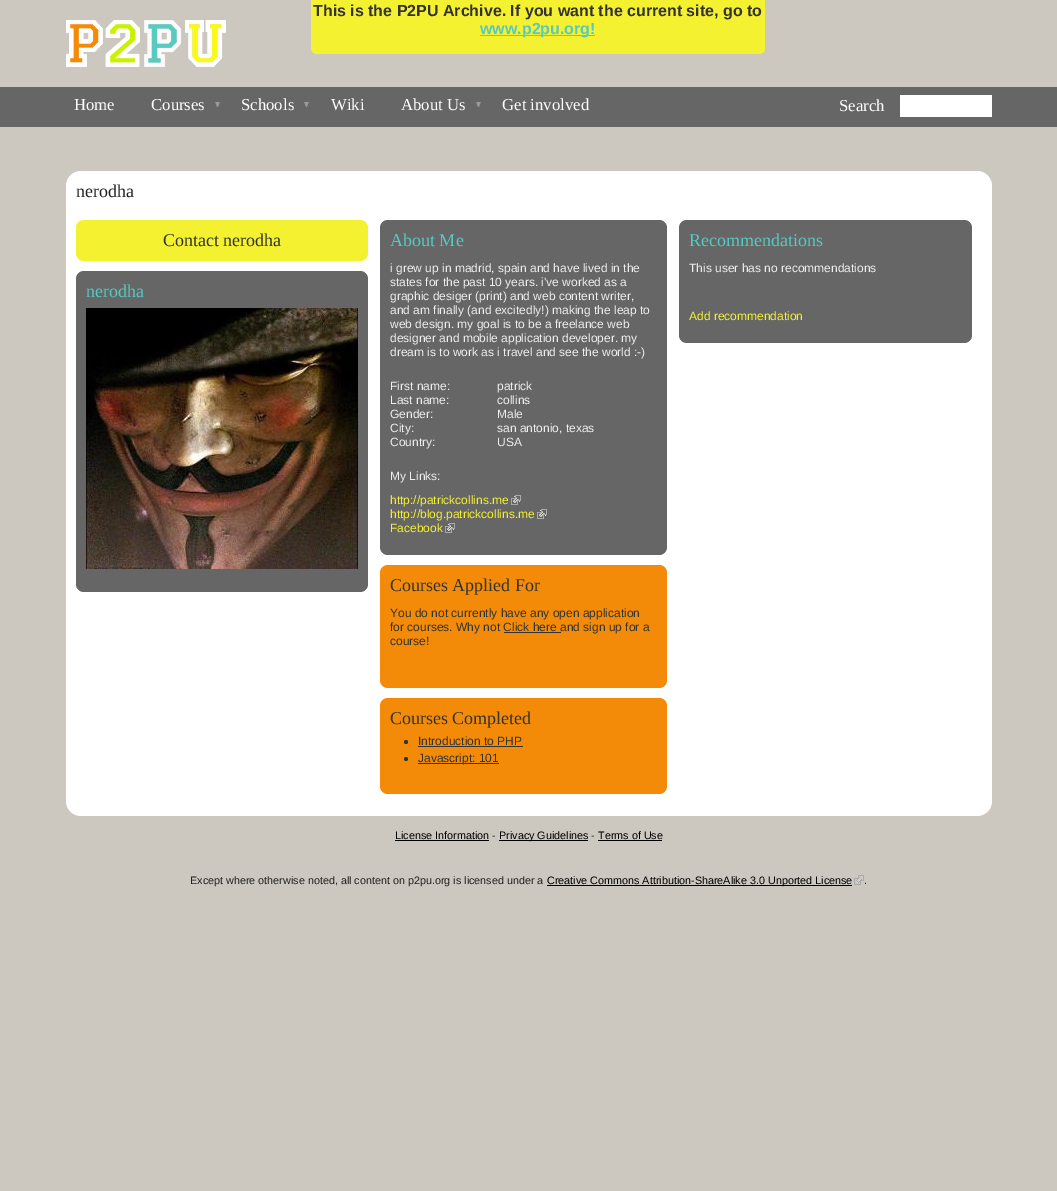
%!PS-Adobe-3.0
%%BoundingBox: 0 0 1057 1191
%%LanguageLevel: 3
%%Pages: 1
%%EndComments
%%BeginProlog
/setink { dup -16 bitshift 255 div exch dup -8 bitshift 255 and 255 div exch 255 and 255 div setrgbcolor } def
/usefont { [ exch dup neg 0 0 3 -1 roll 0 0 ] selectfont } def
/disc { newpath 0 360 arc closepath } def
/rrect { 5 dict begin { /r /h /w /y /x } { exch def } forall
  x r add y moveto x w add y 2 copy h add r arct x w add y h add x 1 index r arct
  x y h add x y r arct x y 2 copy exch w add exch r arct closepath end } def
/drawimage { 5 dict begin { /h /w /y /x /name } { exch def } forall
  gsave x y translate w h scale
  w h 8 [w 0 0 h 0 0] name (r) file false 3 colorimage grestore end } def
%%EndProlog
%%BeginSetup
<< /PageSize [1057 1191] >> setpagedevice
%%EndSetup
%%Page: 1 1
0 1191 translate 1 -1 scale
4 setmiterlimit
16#CCC8BF setink
0 0 1057 1191 rectfill
16#666666 setink
0 87 1057 40 rectfill
(img1.raw) 66 20 160 47 drawimage
16#F3F130 setink
311 0 moveto 765 0 lineto 765 48 lineto 765 51.5 762.5 54 759 54 curveto 317 54 lineto 313.5 54 311 51.5 311 48 curveto closepath fill
/LiberationSans-Bold 16 usefont
16#333333 setink
313 16 moveto (This is the P2PU Archive. If you want the current site, go to) show
16#58CAC1 setink
480 35 115 1 rectfill
16#55CAC1 setink
480 34 moveto (www.p2pu.org!) show
/LiberationSerif-Regular 16.75 usefont
16#FFFFFF setink
74 110 moveto (Home) show
(img2.raw) 215 102 5 5 drawimage
151 110 moveto (Courses) show
(img2.raw) 304 102 5 5 drawimage
241 110 moveto (Schools) show
331 110 moveto (Wiki) show
(img2.raw) 476 102 5 5 drawimage
[
    [(About Us) 401 110]
    [(Get involved) 502 110]
    [(Search) 839 111]
] { aload pop moveto show } forall
900 95 92 22 rectfill
66 171 926 645 15 rrect fill
/LiberationSerif-Regular 18 usefont
16#222222 setink
76 197 moveto (nerodha) show
16#F3F130 setink
76 220 292 41 8 rrect fill
16#333333 setink
163 246 moveto (Contact nerodha) show
16#666666 setink
76 271 292 321 8 rrect fill
16#55CAC1 setink
86 297 moveto (nerodha) show
(img3.raw) 86 308 272 261 drawimage
16#666666 setink
380 220 287 335 8 rrect fill
16#55CAC1 setink
390 246 moveto (About Me) show
/LiberationSans-Regular 12 usefont
16#EEEEEE setink
[
    [(i grew up in madrid, spain and have lived in the) 390 272]
    [(states for the past 10 years. i've worked as a) 390 286]
    [(graphic desiger \(print\) and web content writer,) 390 300]
    [(and am finally \(and excitedly!\) making the leap to) 390 314]
    [(web design. my goal is to be a freelance web) 390 328]
    [(designer and mobile application developer. my) 390 342]
    [(dream is to work as i travel and see the world :-\)) 390 356]
    [(First name:) 390 390]
    [(patrick) 497 390]
    [(Last name:) 390 404]
    [(collins) 497 404]
    [(Gender:) 390 418]
    [(Male) 497 418]
    [(City:) 390 432]
    [(san antonio, texas) 497 432]
    [(Country:) 390 446]
    [(USA) 497 446]
    [(My Links:) 390 480]
] { aload pop moveto show } forall
16#F3F130 setink
390 504 moveto (http://patrickcollins.me) show
(img4.raw) 511 495 10 10 drawimage
390 518 moveto (http://blog.patrickcollins.me) show
(img4.raw) 537 509 10 10 drawimage
390 532 moveto (Facebook) show
(img4.raw) 445 523 10 10 drawimage
16#F48B08 setink
380 565 287 123 8 rrect fill
/LiberationSerif-Regular 18 usefont
16#333333 setink
390 591 moveto (Courses Applied For) show
/LiberationSans-Regular 12 usefont
390 617 moveto (You do not currently have any open application) show
390 631 moveto (for courses. Why not Click here and sign up for a) show
504 632 57 1 rectfill
390 645 moveto (course!) show
16#F48B08 setink
380 698 287 96 8 rrect fill
/LiberationSerif-Regular 18 usefont
16#333333 setink
390 724 moveto (Courses Completed) show
406 742 2 disc fill
/LiberationSans-Regular 12 usefont
418 745 moveto (Introduction to PHP) show
418 746 105 1 rectfill
406 759 2 disc fill
418 763 81 1 rectfill
418 762 moveto (Javascript: 101) show
16#666666 setink
679 220 293 123 8 rrect fill
/LiberationSerif-Regular 18 usefont
16#55CAC1 setink
689 246 moveto (Recommendations) show
/LiberationSans-Regular 12 usefont
16#EEEEEE setink
689 272 moveto (This user has no recommendations) show
16#F3F130 setink
689 320 moveto (Add recommendation) show
/LiberationSans-Regular 10.8 usefont
16#000000 setink
395 839 moveto (License Information) show
395 840 94 1 rectfill
16#222222 setink
492 839 moveto (-) show
16#000000 setink
499 840 89 1 rectfill
499 839 moveto (Privacy Guidelines) show
16#222222 setink
591 839 moveto (-) show
16#000000 setink
598 839 moveto (Terms of Use) show
598 840 64 1 rectfill
16#222222 setink
190 884 moveto (Except where otherwise noted, all content on p2pu.org is licensed under a) show
16#000000 setink
547 885 305 1 rectfill
547 884 moveto (Creative Commons Attribution-ShareAlike 3.0 Unported License) show
(img5.raw) 854 875 10 10 drawimage
16#222222 setink
864 884 moveto (.) show
showpage
%%EOF
